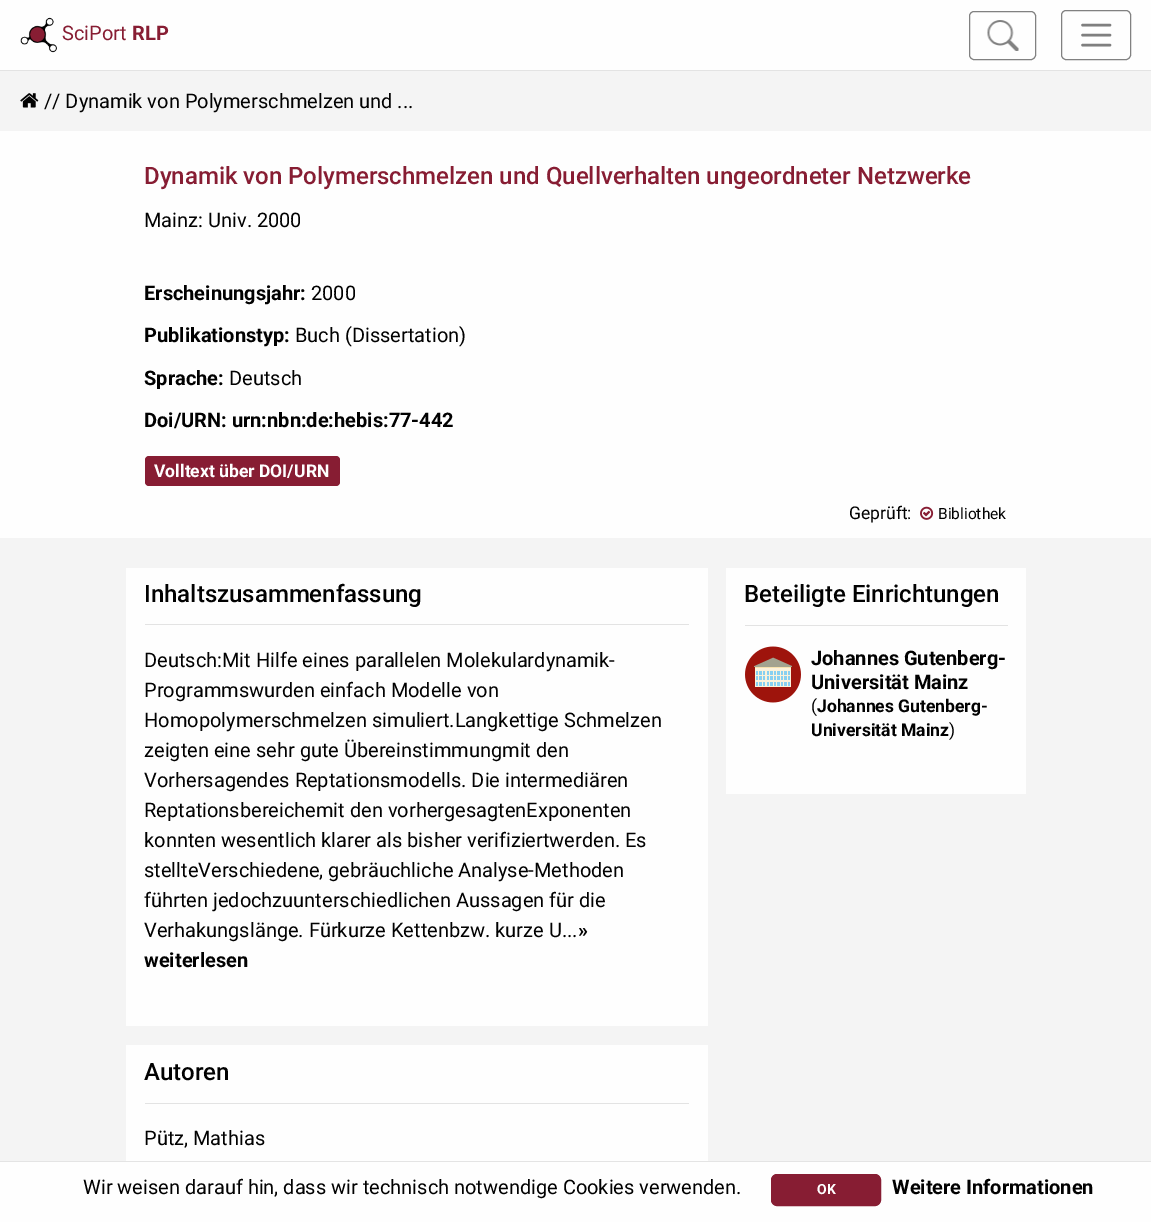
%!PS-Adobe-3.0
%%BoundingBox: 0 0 1151 1222
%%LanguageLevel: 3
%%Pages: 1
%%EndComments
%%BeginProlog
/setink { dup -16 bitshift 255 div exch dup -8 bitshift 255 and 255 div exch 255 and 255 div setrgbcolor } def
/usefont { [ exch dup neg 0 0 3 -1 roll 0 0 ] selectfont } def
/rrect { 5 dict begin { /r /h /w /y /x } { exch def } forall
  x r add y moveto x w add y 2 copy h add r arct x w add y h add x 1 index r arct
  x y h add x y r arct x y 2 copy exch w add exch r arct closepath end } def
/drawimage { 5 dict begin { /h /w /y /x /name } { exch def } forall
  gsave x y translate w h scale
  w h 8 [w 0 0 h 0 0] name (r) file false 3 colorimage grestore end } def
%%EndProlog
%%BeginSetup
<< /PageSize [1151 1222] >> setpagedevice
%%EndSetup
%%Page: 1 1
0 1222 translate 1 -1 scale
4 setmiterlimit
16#F4F4F4 setink
0 0 1151 1222 rectfill
16#FEFEFE setink
0 0 1151 70 rectfill
16#E3E3E3 setink
0 70 1151 1 rectfill
(img1.raw) 20 17 37 36 drawimage
/Roboto-Regular 20 usefont
16#871D33 setink
62 40 moveto (SciPort) show
/Roboto-Bold 20 usefont
132 40 moveto (RLP) show
16#818181 setink
969.5 11.5 66 48 4.5 rrect stroke
(img2.raw) 987 20 32 31 drawimage
1061.5 10.5 69 49 4.5 rrect stroke
16#7F7F7F setink
2.5 setlinewidth
1 setlinecap
1082.5 25 moveto 1110 25 lineto 1082.5 35 moveto 1110 35 lineto 1082.5 45 moveto 1110 45 lineto stroke
(img3.raw) 20 93 19 15 drawimage
/Roboto-Regular 20 usefont
16#010101 setink
44 108 moveto (// Dynamik von Polymerschmelzen und ...) show
16#FEFEFE setink
0 131 1151 407 rectfill
/Roboto-Medium 24 usefont
16#871D33 setink
144 184 moveto (Dynamik von Polymerschmelzen und Quellverhalten ungeordneter Netzwerke) show
/Roboto-Regular 20 usefont
16#010101 setink
144 227 moveto (Mainz: Univ. 2000) show
/Roboto-Bold 20 usefont
144 300 moveto (Erscheinungsjahr:) show
/Roboto-Regular 20 usefont
311 300 moveto (2000) show
/Roboto-Bold 20 usefont
144 342 moveto (Publikationstyp:) show
/Roboto-Regular 20 usefont
295 342 moveto (Buch \(Dissertation\)) show
/Roboto-Bold 20 usefont
144 385 moveto (Sprache:) show
/Roboto-Regular 20 usefont
229 385 moveto (Deutsch) show
/Roboto-Bold 20 usefont
144 427 moveto (Doi/URN: urn:nbn:de:hebis:77-442) show
16#871D33 setink
145 456 195 30 4 rrect fill
/Roboto-Bold 17.5 usefont
16#FFFFFF setink
154 477 moveto (Volltext über DOI/URN) show
/Roboto-Regular 17.5 usefont
16#010101 setink
849 519 moveto (Geprüft:) show
(img4.raw) 920 506 14 14 drawimage
/Roboto-Regular 15.5 usefont
938 519 moveto (Bibliothek) show
16#FEFEFE setink
126 568 582 458 rectfill
/Roboto-Medium 24 usefont
16#010101 setink
144 602 moveto (Inhaltszusammenfassung) show
16#E3E3E3 setink
145 624 544 1 rectfill
/Roboto-Regular 20 usefont
16#010101 setink
[
    [(Deutsch:Mit Hilfe eines parallelen Molekulardynamik-) 144 667]
    [(Programmswurden einfach Modelle von) 144 697]
    [(Homopolymerschmelzen simuliert.Langkettige Schmelzen) 144 727]
    [(zeigten eine sehr gute Übereinstimmungmit den) 144 757]
    [(Vorhersagendes Reptationsmodells. Die intermediären) 144 787]
    [(Reptationsbereichemit den vorhergesagtenExponenten) 144 817]
    [(konnten wesentlich klarer als bisher verifiziertwerden. Es) 144 847]
    [(stellteVerschiedene, gebräuchliche Analyse-Methoden) 144 877]
    [(führten jedochzuunterschiedlichen Aussagen für die) 144 907]
    [(Verhakungslänge. Fürkurze Kettenbzw. kurze U...) 144 937]
] { aload pop moveto show } forall
/Roboto-Bold 20 usefont
578 937 moveto (») show
144 967 moveto (weiterlesen) show
16#FEFEFE setink
126 1045 582 116 rectfill
/Roboto-Medium 24 usefont
16#010101 setink
144 1080 moveto (Autoren) show
16#E3E3E3 setink
145 1103 544 1 rectfill
/Roboto-Regular 20 usefont
16#010101 setink
144 1145 moveto (Pütz, Mathias) show
16#FEFEFE setink
726 568 300 226 rectfill
/Roboto-Medium 24 usefont
16#010101 setink
744 602 moveto (Beteiligte Einrichtungen) show
16#E3E3E3 setink
745 625 263 1 rectfill
(img5.raw) 745 646 56 57 drawimage
/Roboto-Bold 20 usefont
16#010101 setink
811 665 moveto (Johannes Gutenberg-) show
811 689 moveto (Universität Mainz) show
/Roboto-Regular 17.5 usefont
811 712 moveto (\() show
/Roboto-Bold 17.5 usefont
817 712 moveto (Johannes Gutenberg-) show
811 736 moveto (Universität Mainz) show
/Roboto-Regular 17.5 usefont
949 736 moveto (\)) show
16#FEFEFE setink
0 1162 1151 60 rectfill
16#E4E4E4 setink
0 1161 1151 1 rectfill
/Roboto-Regular 20 usefont
16#010101 setink
83 1194 moveto (Wir weisen darauf hin, dass wir technisch notwendige Cookies verwenden.) show
16#871D33 setink
771.5 1174.5 109 31 5.5 rrect gsave fill grestore
1 setlinewidth
0 setlinecap
stroke
/Roboto-Bold 14 usefont
16#FFFFFF setink
817 1194 moveto (OK) show
/Roboto-Bold 20 usefont
16#010101 setink
892 1194 moveto (Weitere Informationen) show
showpage
%%EOF
